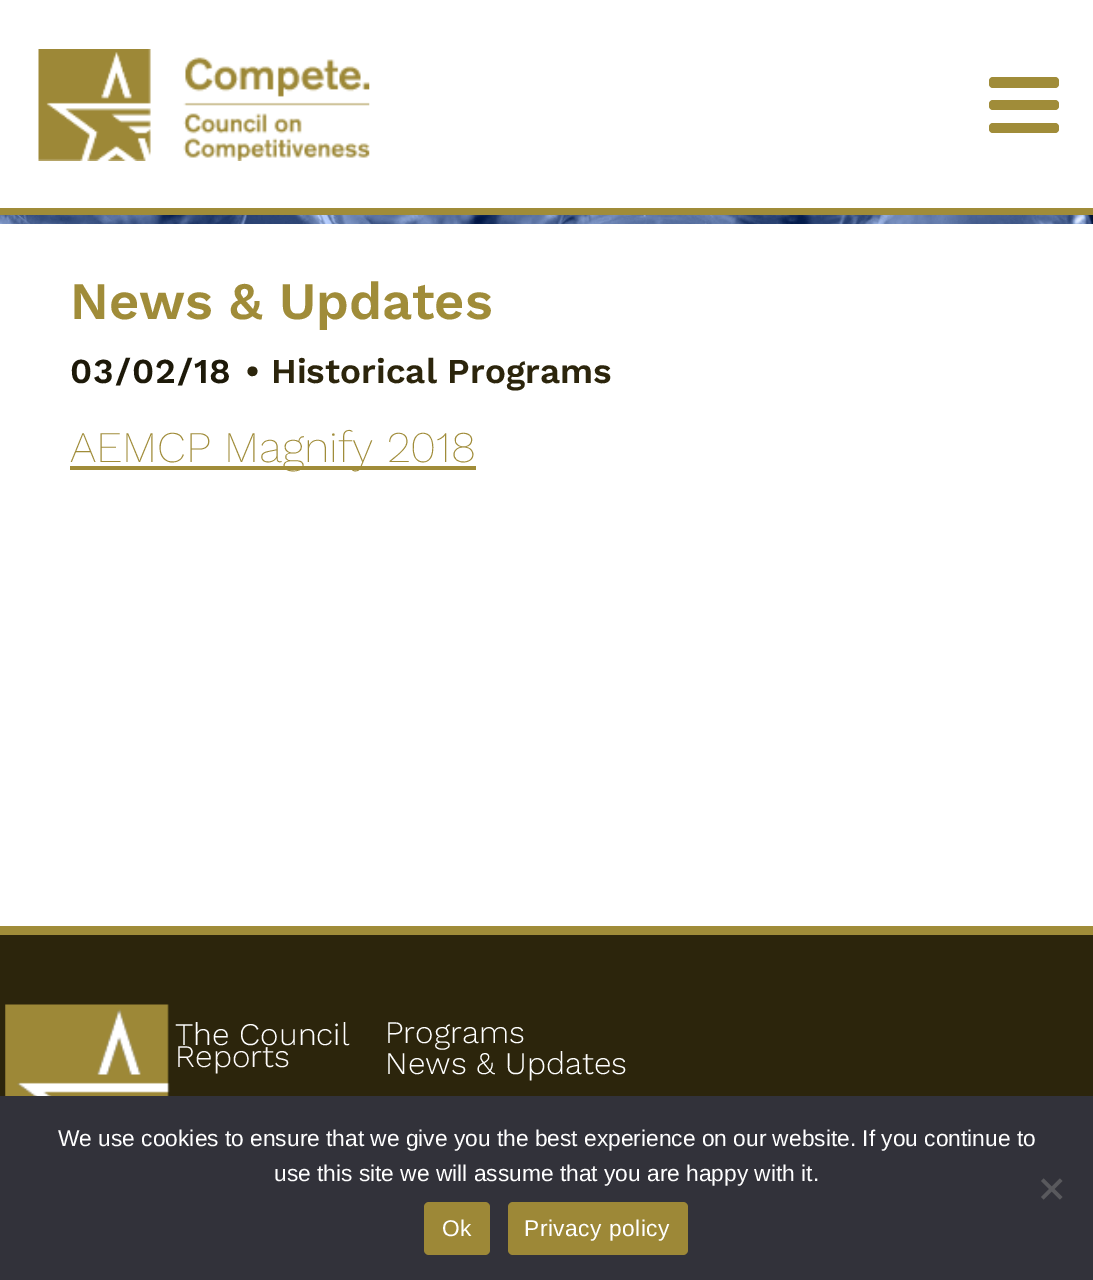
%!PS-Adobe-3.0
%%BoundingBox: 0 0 1093 1280
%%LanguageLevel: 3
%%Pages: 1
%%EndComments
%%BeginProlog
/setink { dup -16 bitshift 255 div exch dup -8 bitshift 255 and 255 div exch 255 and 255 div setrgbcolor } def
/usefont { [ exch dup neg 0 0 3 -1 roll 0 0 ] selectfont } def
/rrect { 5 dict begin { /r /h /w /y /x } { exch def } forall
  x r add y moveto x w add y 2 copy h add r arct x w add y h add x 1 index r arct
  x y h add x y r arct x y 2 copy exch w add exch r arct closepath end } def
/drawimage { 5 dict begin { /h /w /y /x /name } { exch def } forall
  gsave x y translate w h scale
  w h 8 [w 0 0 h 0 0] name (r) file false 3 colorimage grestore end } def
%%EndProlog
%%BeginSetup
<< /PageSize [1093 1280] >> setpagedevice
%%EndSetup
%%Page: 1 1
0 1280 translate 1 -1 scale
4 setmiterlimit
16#FFFFFF setink
0 0 1093 1280 rectfill
16#A08C39 setink
0 208 1093 7 rectfill
(img1.raw) 38 49 332 112 drawimage
989 77 70 11 4 rrect fill
989 100 70 10 4 rrect fill
989 123 70 10 4 rrect fill
(img2.raw) 0 215 1093 9 drawimage
/WorkSans-SemiBold 52.5 usefont
70 319 moveto (News & Updates) show
/WorkSans-SemiBold 35 usefont
16#1D1909 setink
70 383 moveto 1 0 (03/02/18) ashow
16#2C250C setink
245 383 moveto (• Historical Programs) show
16#A08C39 setink
70 466 406 4 rectfill
/WorkSans-ExtraLight 43.75 usefont
70 462 moveto (AEMCP Magnify 2018) show
16#2C250C setink
0 935 1093 161 rectfill
16#A08C39 setink
0 926 1093 9 rectfill
(img3.raw) 5 1004 165 92 drawimage
/WorkSans-Light 31.5 usefont
16#FFFFFF setink
175 1045 moveto (The Council) show
385 1043 moveto (Programs) show
16#FCF9F9 setink
175 1067 moveto (Reports) show
16#FFFFFF setink
385 1074 moveto (News & Updates) show
16#32323A setink
0 1096 1093 184 rectfill
/LiberationSans-Regular 22.75 usefont
16#FFFFFF setink
58 1146 moveto (We use cookies to ensure that we give you the best experience on our website. If you continue to) show
274 1181 moveto (use this site we will assume that you are happy with it.) show
16#59595D setink
1060 1178.5 moveto 1062.5 1181 lineto 1043.5 1199.5 lineto 1041 1197 lineto closepath fill
1041 1181 moveto 1043.5 1178.5 lineto 1062.5 1197 lineto 1060 1199.5 lineto closepath fill
16#9D8837 setink
424 1202 66 53 5 rrect fill
16#FFFFFF setink
442 1236 moveto 0.5 0 (Ok) ashow
16#9D8837 setink
508 1202 180 53 5 rrect fill
16#FFFFFF setink
524 1236 moveto 0.5 0 (Privacy policy) ashow
showpage
%%EOF
